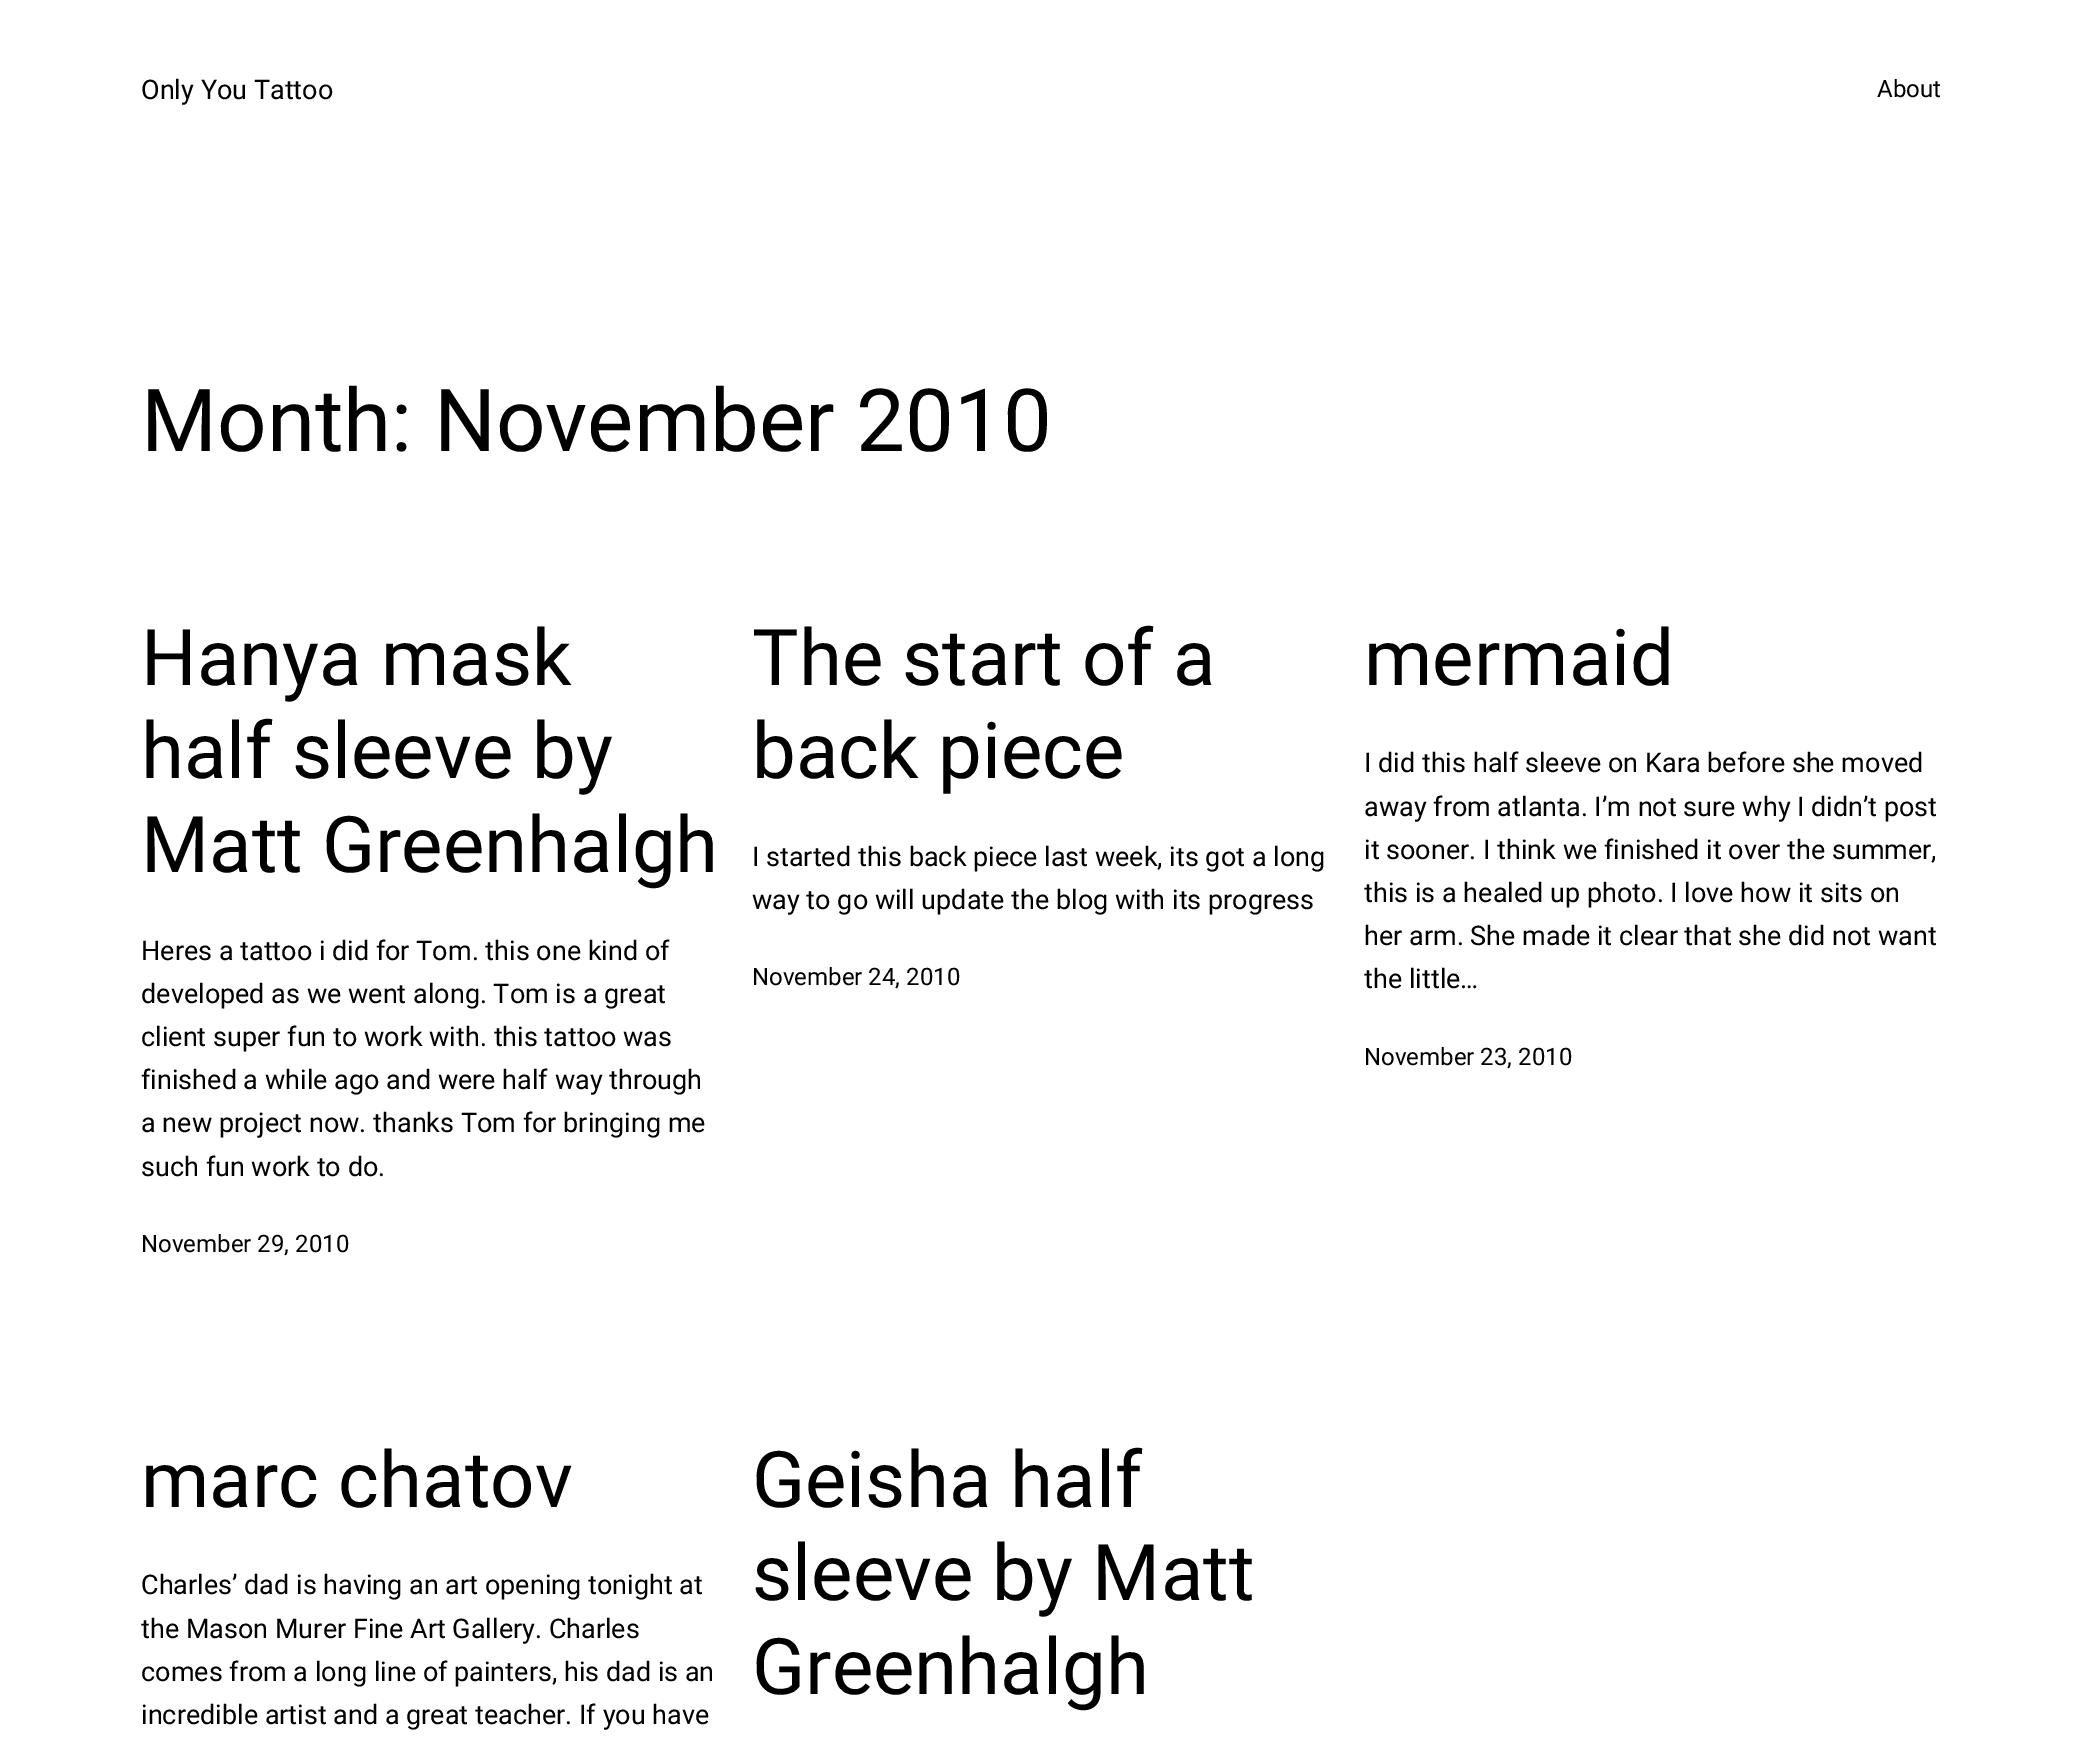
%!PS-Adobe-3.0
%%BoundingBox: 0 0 2081 1750
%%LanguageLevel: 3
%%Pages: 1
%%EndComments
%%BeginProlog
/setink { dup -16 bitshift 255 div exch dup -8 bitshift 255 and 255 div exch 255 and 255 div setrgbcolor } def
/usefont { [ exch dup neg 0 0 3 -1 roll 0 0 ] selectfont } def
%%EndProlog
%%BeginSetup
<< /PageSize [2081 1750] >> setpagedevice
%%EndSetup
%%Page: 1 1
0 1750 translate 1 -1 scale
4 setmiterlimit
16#FFFFFF setink
0 0 2081 1750 rectfill
/Roboto-Regular 27 usefont
16#000000 setink
141 99 moveto (Only You Tattoo) show
/Roboto-Regular 24 usefont
1877 97 moveto (About) show
/Roboto-Regular 87 usefont
141 451 moveto (Month: November 2010) show
/Roboto-Regular 78 usefont
[
    [(Hanya mask) 141 685]
    [(half sleeve by) 141 778]
    [(Matt Greenhalgh) 141 872]
] { aload pop moveto show } forall
/Roboto-Regular 27 usefont
[
    [(Heres a tattoo i did for Tom. this one kind of) 141 960]
    [(developed as we went along. Tom is a great) 141 1003]
    [(client super fun to work with. this tattoo was) 141 1046]
    [(finished a while ago and were half way through) 141 1089]
    [(a new project now. thanks Tom for bringing me) 141 1132]
    [(such fun work to do.) 141 1176]
] { aload pop moveto show } forall
/Roboto-Regular 24 usefont
141 1252 moveto (November 29, 2010) show
/Roboto-Regular 78 usefont
752 685 moveto (The start of a) show
752 778 moveto (back piece) show
/Roboto-Regular 27 usefont
752 866 moveto (I started this back piece last week, its got a long) show
752 909 moveto (way to go will update the blog with its progress) show
/Roboto-Regular 24 usefont
752 985 moveto (November 24, 2010) show
/Roboto-Regular 78 usefont
1364 685 moveto (mermaid) show
/Roboto-Regular 27 usefont
[
    [(I did this half sleeve on Kara before she moved) 1364 772]
    [(away from atlanta. I’m not sure why I didn’t post) 1364 816]
    [(it sooner. I think we finished it over the summer,) 1364 859]
    [(this is a healed up photo. I love how it sits on) 1364 902]
    [(her arm. She made it clear that she did not want) 1364 945]
    [(the little…) 1364 988]
] { aload pop moveto show } forall
/Roboto-Regular 24 usefont
1364 1065 moveto (November 23, 2010) show
/Roboto-Regular 78 usefont
141 1507 moveto (marc chatov) show
/Roboto-Regular 27 usefont
[
    [(Charles’ dad is having an art opening tonight at) 141 1594]
    [(the Mason Murer Fine Art Gallery. Charles) 141 1638]
    [(comes from a long line of painters, his dad is an) 141 1681]
    [(incredible artist and a great teacher. If you have) 141 1724]
] { aload pop moveto show } forall
/Roboto-Regular 78 usefont
[
    [(Geisha half) 752 1507]
    [(sleeve by Matt) 752 1600]
    [(Greenhalgh) 752 1694]
] { aload pop moveto show } forall
showpage
%%EOF
